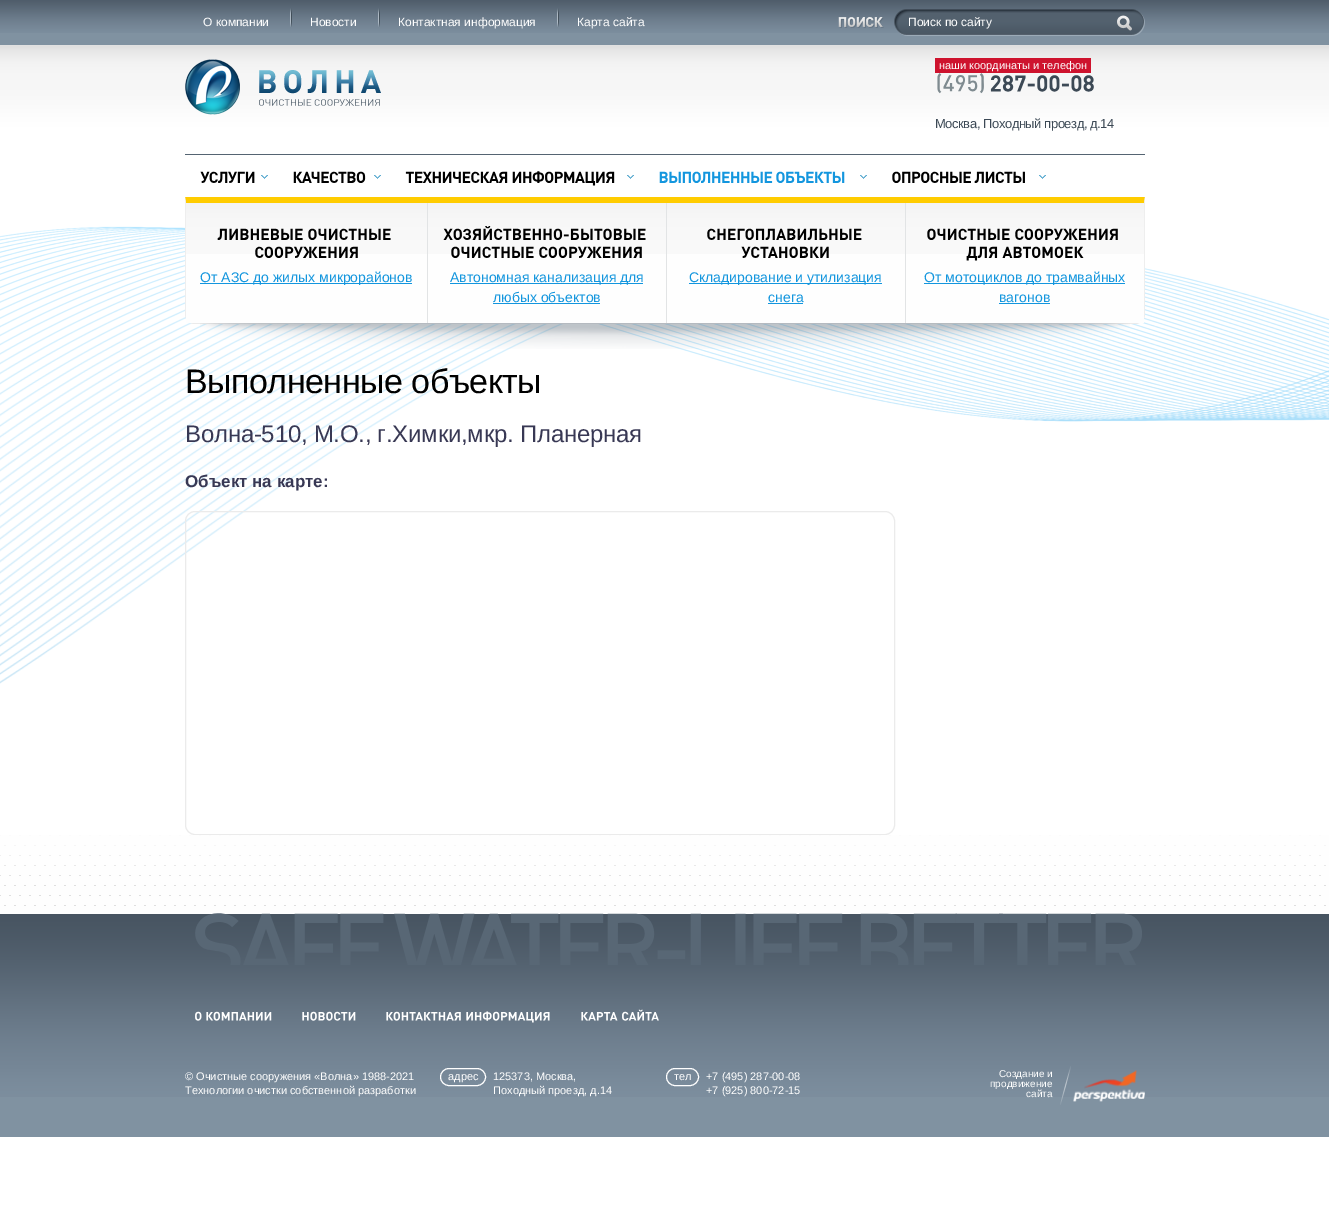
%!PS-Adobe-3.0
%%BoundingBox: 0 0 1329 1229
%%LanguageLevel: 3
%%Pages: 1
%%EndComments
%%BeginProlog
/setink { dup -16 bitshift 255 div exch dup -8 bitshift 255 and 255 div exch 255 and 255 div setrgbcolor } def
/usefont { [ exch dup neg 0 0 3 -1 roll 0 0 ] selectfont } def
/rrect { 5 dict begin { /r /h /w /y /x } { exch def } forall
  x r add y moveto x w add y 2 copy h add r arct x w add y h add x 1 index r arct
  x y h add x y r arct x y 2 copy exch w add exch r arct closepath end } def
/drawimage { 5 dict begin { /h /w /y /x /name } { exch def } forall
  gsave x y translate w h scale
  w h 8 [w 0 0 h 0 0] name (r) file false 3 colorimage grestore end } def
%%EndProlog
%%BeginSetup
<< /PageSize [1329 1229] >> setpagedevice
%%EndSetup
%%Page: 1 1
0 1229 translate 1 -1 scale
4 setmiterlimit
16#FFFFFF setink
0 0 1329 1229 rectfill
(img1.raw) 0 45 1329 639 drawimage
16#8092A1 setink
0 33 1329 12 rectfill
(img2.raw) 0 0 1329 33 drawimage
/Arimo-Regular 12 usefont
16#FFFFFF setink
203 26 moveto (О компании) show
(img3.raw) 290 8 2 19 drawimage
310 26 moveto (Новости) show
(img3.raw) 378 8 2 19 drawimage
398 26 moveto (Контактная информация) show
(img3.raw) 557 8 2 19 drawimage
577 26 moveto (Карта сайта) show
(img4.raw) 838 9 307 27 drawimage
/LiberationSans-Regular 12 usefont
908 26 moveto (Поиск по сайту) show
(img5.raw) 1117 15 15 16 drawimage
16#556472 setink
185 154 960 1 rectfill
(img6.raw) 185 59 196 56 drawimage
16#CE132E setink
935 58 156 15 rectfill
/Arimo-Regular 11 usefont
16#FFFFFF setink
939 69 moveto (наши координаты и телефон) show
(img7.raw) 937 73 47 21 drawimage
(img8.raw) 990 75 104 17 drawimage
/Arimo-Regular 13 usefont
16#3C4955 setink
935 128 moveto -0.45 0 (Москва, Походный проезд, д.14) ashow
(img9.raw) 261 175 7 4 drawimage
(img10.raw) 200 171 55 12 drawimage
(img9.raw) 374 175 7 4 drawimage
(img11.raw) 293 171 73 12 drawimage
(img9.raw) 627 175 7 4 drawimage
(img12.raw) 405 171 103 12 drawimage
(img13.raw) 512 171 103 15 drawimage
(img9.raw) 860 175 7 4 drawimage
(img14.raw) 659 171 114 12 drawimage
(img15.raw) 776 171 69 12 drawimage
(img9.raw) 1039 175 7 4 drawimage
(img16.raw) 892 171 79 12 drawimage
(img17.raw) 974 171 51 12 drawimage
16#FFCC00 setink
185 197 moveto 186 203 lineto 1144 203 lineto 1145 197 lineto closepath fill
16#EEEEEE setink
1145 197 moveto 1144 203 lineto 1144 314 lineto 1144 316 1143 319 1141 320 curveto 1142 321 lineto 1144 320 1145 317 1145 314 curveto closepath fill
16#EBEBEB setink
195 324 moveto 1135 324 lineto 1138 324 1140 323 1142 321 curveto 1141 320 lineto 1140 322 1138 323 1135 323 curveto 195 323 lineto 192 323 190 322 189 320 curveto 188 321 lineto 190 323 192 324 195 324 curveto closepath fill
16#EEEEEE setink
186 203 moveto 185 197 lineto 185 314 lineto 185 317 186 320 188 321 curveto 189 320 lineto 187 319 186 316 186 314 curveto closepath fill
16#FEFEFE setink
186 254 241 69 rectfill
(img18.raw) 186 203 241 51 drawimage
(img19.raw) 217 228 86 12 drawimage
(img20.raw) 308 228 83 12 drawimage
(img21.raw) 255 246 103 12 drawimage
16#1396DE setink
200 283 212 1 rectfill
/Arimo-Regular 14 usefont
200 282 moveto (От АЗС до жилых микрорайонов) show
16#FEFEFE setink
428 254 238 69 rectfill
(img22.raw) 428 203 238 51 drawimage
16#E2E4E5 setink
427 203 1 120 rectfill
(img23.raw) 443 226 203 14 drawimage
(img24.raw) 451 246 83 12 drawimage
(img21.raw) 539 246 103 12 drawimage
16#1396DE setink
450 283 193 1 rectfill
450 282 moveto (Автономная канализация для) show
493 302 moveto (любых объектов) show
493 303 107 1 rectfill
16#FEFEFE setink
667 254 238 69 rectfill
(img22.raw) 667 203 238 51 drawimage
16#E2E4E5 setink
666 203 1 120 rectfill
(img25.raw) 707 228 155 12 drawimage
(img26.raw) 741 246 88 12 drawimage
16#1396DE setink
689 283 193 1 rectfill
689 282 moveto (Складирование и утилизация) show
768 302 moveto (снега) show
768 303 35 1 rectfill
16#FEFEFE setink
906 254 238 69 rectfill
(img22.raw) 906 203 238 51 drawimage
16#E2E4E5 setink
905 203 1 120 rectfill
(img20.raw) 927 228 83 12 drawimage
(img27.raw) 1015 228 103 12 drawimage
(img28.raw) 966 246 32 15 drawimage
(img29.raw) 1002 246 82 12 drawimage
16#1396DE setink
924 283 201 1 rectfill
924 282 moveto (От мотоциклов до трамвайных) show
999 302 moveto (вагонов) show
999 303 51 1 rectfill
(img30.raw) 200 323 930 26 drawimage
/Arimo-Regular 34 usefont
16#000000 setink
185 393 moveto -0.5 0 (Выполненные объекты) ashow
/Arimo-Regular 24 usefont
16#383854 setink
185 442 moveto -0.25 0 (Волна-510, М.О., г.Химки,мкр. Планерная) ashow
/Arimo-Bold 17 usefont
185 487 moveto (Объект на карте:) show
16#EBEBEB setink
185.5 511.5 709 323 9.5 rrect stroke
16#8092A1 setink
0 1097 1329 40 rectfill
(img31.raw) 0 835 1329 262 drawimage
(img32.raw) 195 913 189 52 drawimage
(img33.raw) 394 913 449 52 drawimage
(img34.raw) 860 913 282 52 drawimage
(img35.raw) 195 1011 7 10 drawimage
(img36.raw) 206 1011 66 10 drawimage
(img37.raw) 302 1011 54 10 drawimage
(img38.raw) 386 1011 75 10 drawimage
(img39.raw) 466 1011 84 12 drawimage
(img40.raw) 581 1012 37 9 drawimage
(img41.raw) 622 1009 37 12 drawimage
/Arimo-Regular 11 usefont
16#FFFFFF setink
185 1080 moveto (© Очистные сооружения «Волна» 1988-2021) show
185 1094 moveto (Технологии очистки собственной разработки) show
440.5 1068.5 45 17 8.5 rrect stroke
[
    [(адрес) 448 1080]
    [(125373, Москва,) 493 1080]
    [(Походный проезд, д.14) 493 1094]
] { aload pop moveto show } forall
666.5 1068.5 32 17 8.5 rrect stroke
[
    [(тел) 674 1080]
    [(+7 \(495\) 287-00-08) 706 1080]
    [(+7 \(925\) 800-72-15) 706 1094]
] { aload pop moveto show } forall
/Arimo-Regular 10 usefont
999 1077 moveto (Создание и) show
(img42.raw) 1060 1066 11 39 drawimage
990 1087 moveto (продвижение) show
1026 1097 moveto (сайта) show
(img43.raw) 1073 1070 72 32 drawimage
showpage
%%EOF
